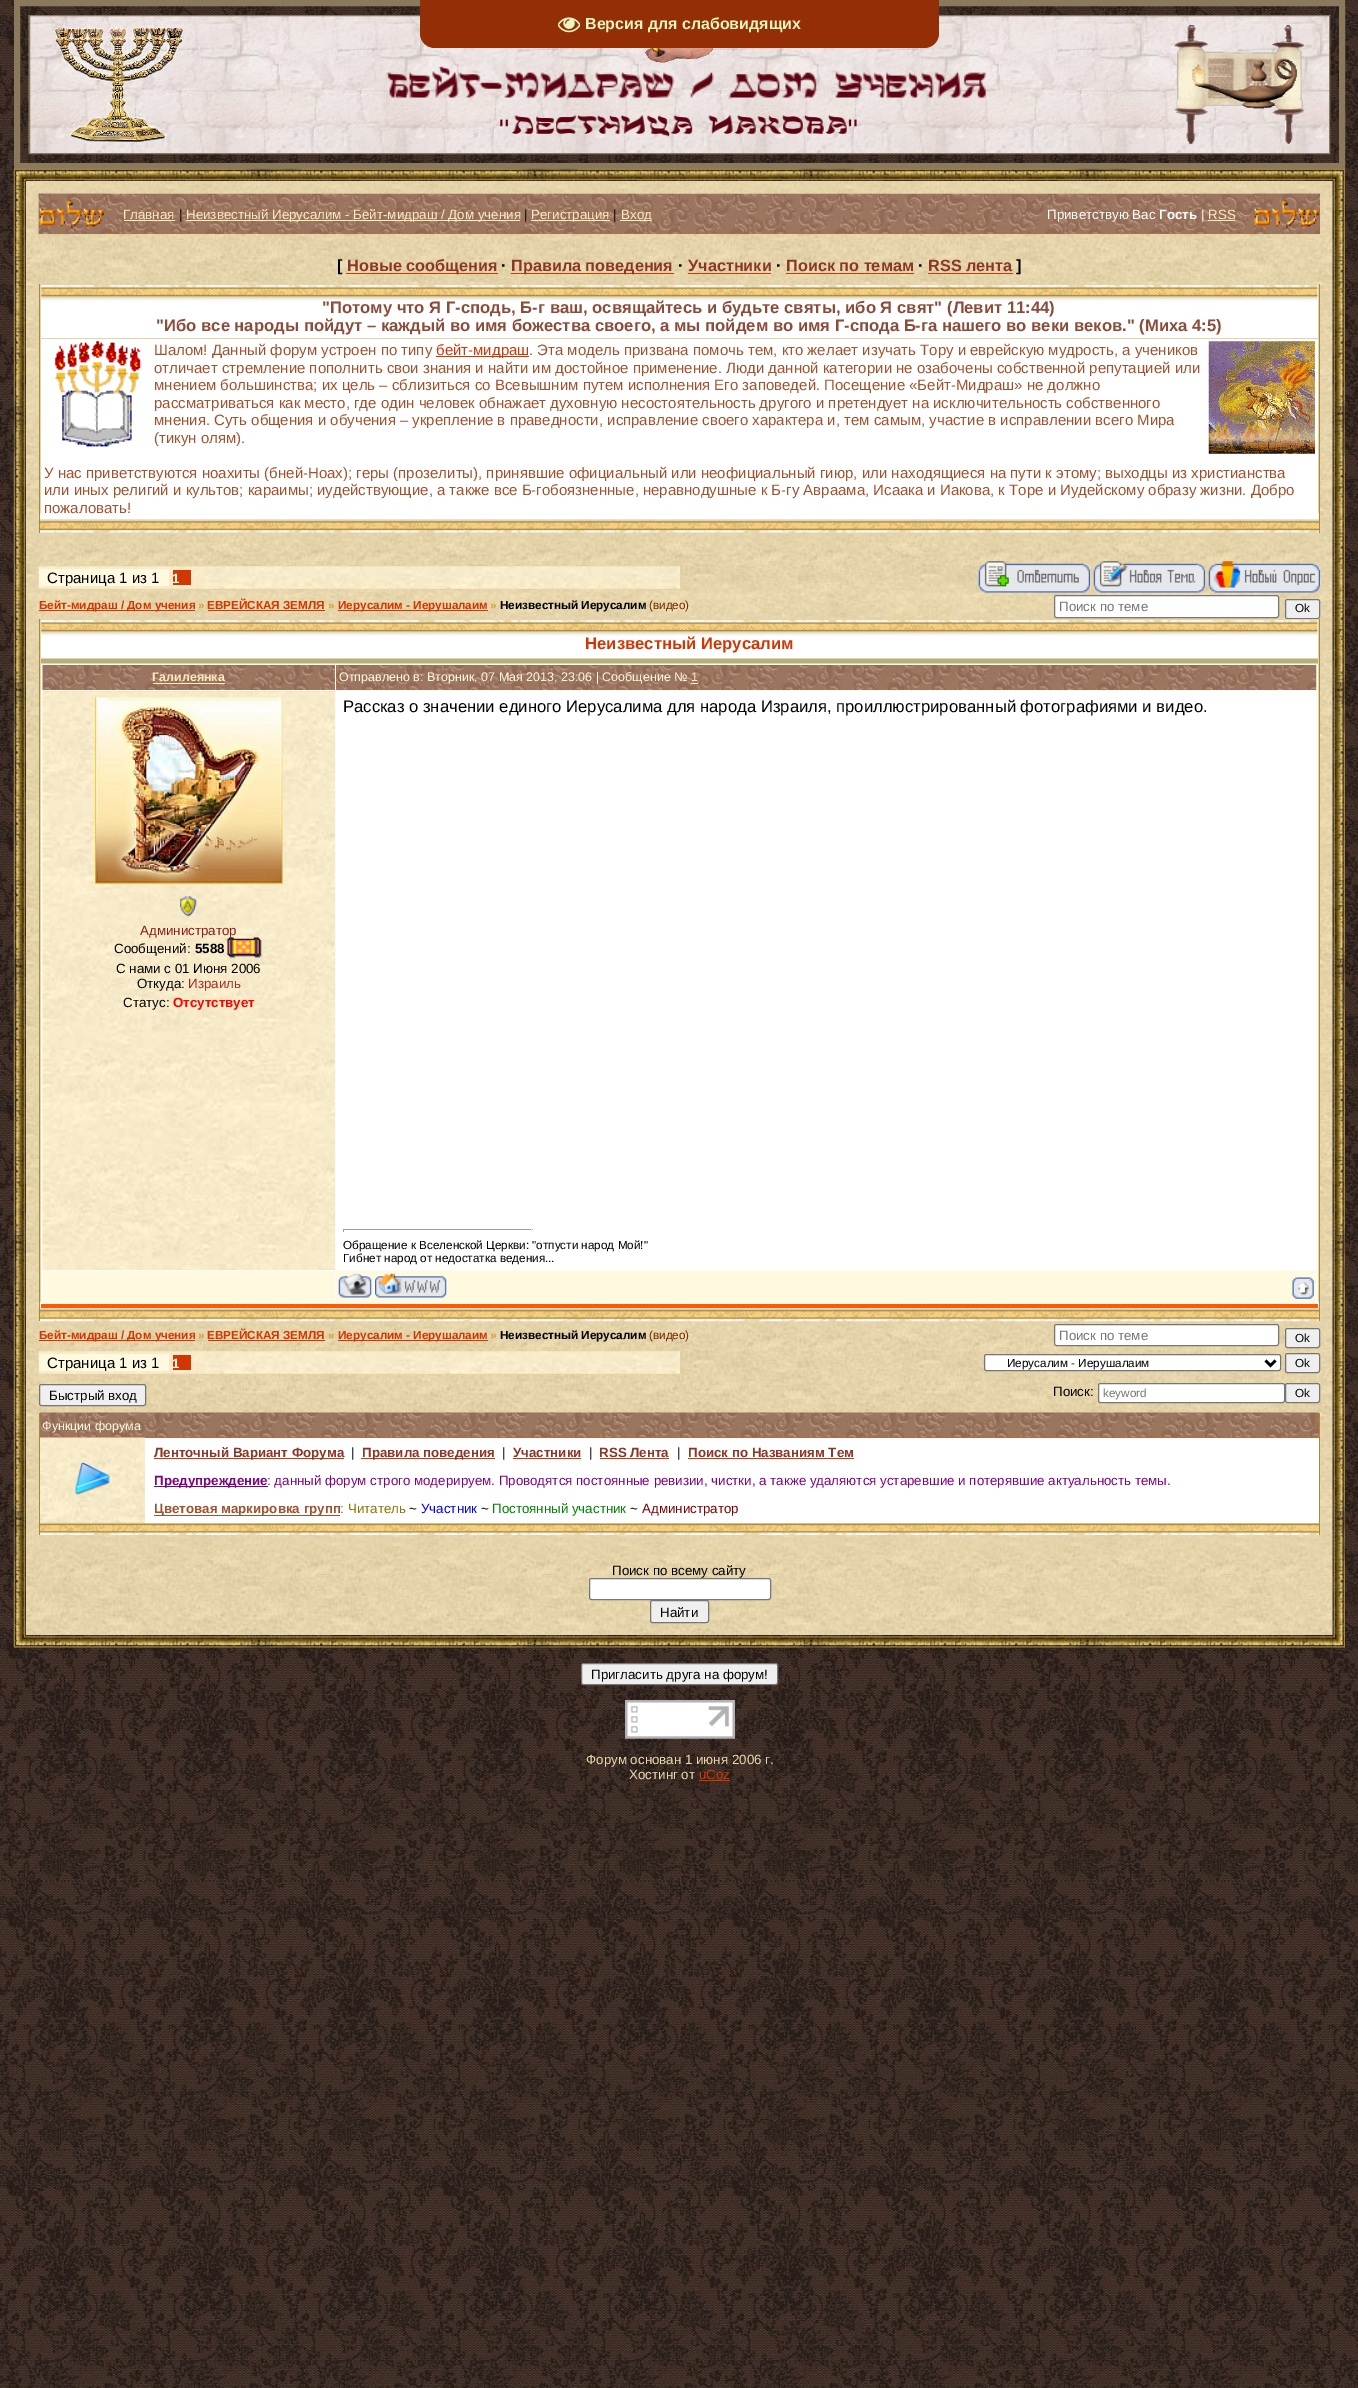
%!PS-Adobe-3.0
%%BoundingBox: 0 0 1358 2388
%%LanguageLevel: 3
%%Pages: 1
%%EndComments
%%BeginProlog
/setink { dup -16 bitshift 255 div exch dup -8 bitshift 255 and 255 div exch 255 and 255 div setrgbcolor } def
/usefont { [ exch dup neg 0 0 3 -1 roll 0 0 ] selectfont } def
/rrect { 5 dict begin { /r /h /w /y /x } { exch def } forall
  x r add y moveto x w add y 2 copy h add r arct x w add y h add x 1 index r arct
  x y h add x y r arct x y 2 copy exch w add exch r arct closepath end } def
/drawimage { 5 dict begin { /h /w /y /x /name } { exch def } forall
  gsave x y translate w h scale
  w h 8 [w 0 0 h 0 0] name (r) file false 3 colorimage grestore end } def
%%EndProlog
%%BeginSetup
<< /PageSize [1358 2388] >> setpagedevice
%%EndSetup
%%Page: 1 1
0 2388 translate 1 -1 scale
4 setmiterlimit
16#FFFFFF setink
0 0 1358 2388 rectfill
(img1.raw) 0 0 1358 2388 drawimage
16#8B795E setink
6 setlinewidth
17 3 1325 163 rectstroke
(img2.raw) 28 15 1301 139 drawimage
1 setlinewidth
29.5 15.5 1300 138 rectstroke
(img3.raw) 51 25 133 118 drawimage
(img4.raw) 1173 25 133 119 drawimage
(img5.raw) 645 48 68 15 drawimage
(img6.raw) 386 66 601 34 drawimage
(img7.raw) 500 115 357 22 drawimage
16#942E06 setink
420 0 moveto 939 0 lineto 939 33 lineto 939 41.5 932.5 48 924 48 curveto 435 48 lineto 426.5 48 420 41.5 420 33 curveto closepath fill
(img8.raw) 558 17 22 16 drawimage
/LiberationSans-Bold 16 usefont
16#EAF5BC setink
585 29 moveto (Версия для слабовидящих) show
(img10.raw) 26 168 1307 13 drawimage
(img12.raw) 13 181 13 1454 drawimage
16#E9D8AD setink
26 181 1307 1454 rectfill
(img13.raw) 26 181 1307 1454 drawimage
(img9.raw) 13 168 14 14 drawimage
(img41.raw) 1332 181 13 1454 drawimage
(img11.raw) 1332 168 13 14 drawimage
(img14.raw) 38 193 1282 41 drawimage
(img15.raw) 38 193 67 41 drawimage
/LiberationSans-Regular 13.33 usefont
16#FFECBD setink
123 219 moveto (Главная) show
124 220 51 1 rectfill
16#000000 setink
179 219 moveto (|) show
16#FFECBD setink
186 220 334 1 rectfill
186 219 moveto (Неизвестный Иерусалим - Бейт-мидраш / Дом учения) show
16#000000 setink
524 219 moveto (|) show
16#FFECBD setink
531 220 79 1 rectfill
531 219 moveto (Регистрация) show
16#000000 setink
613 219 moveto (|) show
16#FFECBD setink
620 220 31 1 rectfill
621 219 moveto (Вход) show
16#FFFFFF setink
1047 219 moveto (Приветствую Вас) show
/LiberationSans-Bold 13.33 usefont
1159 219 moveto (Гость) show
/LiberationSans-Regular 13.33 usefont
1201 219 moveto (|) show
16#FFECBD setink
1208 219 moveto (RSS) show
1208 220 27 1 rectfill
(img16.raw) 1253 193 67 41 drawimage
/LiberationSans-Bold 16.25 usefont
16#000000 setink
337 271 moveto ([) show
16#D13702 setink
346 273 152 1 rectfill
16#8B3626 setink
347 271 moveto (Новые сообщения) show
16#000000 setink
501 271 moveto (·) show
16#D13702 setink
511 273 163 1 rectfill
16#8B3626 setink
511 271 moveto (Правила поведения) show
16#000000 setink
678 271 moveto (·) show
16#8B3626 setink
688 271 moveto (Участники) show
16#D13702 setink
688 273 83 1 rectfill
16#000000 setink
776 271 moveto (·) show
16#8B3626 setink
786 271 moveto (Поиск по темам) show
16#D13702 setink
786 273 128 1 rectfill
16#000000 setink
918 271 moveto (·) show
16#8B3626 setink
928 271 moveto (RSS лента) show
16#D13702 setink
928 273 85 1 rectfill
16#000000 setink
1016 271 moveto (]) show
16#E5D4A9 setink
40 284 1279 249 rectfill
(img17.raw) 38 513 1281 20 drawimage
[
    [1319 284 1 249 16#A5893C]
    [39 284 1 249 16#A5893C]
    [41 285 1277 53 16#FFFFFF]
] { aload pop setink rectfill } forall
(img18.raw) 41 285 1277 16 drawimage
/LiberationSans-Bold 16.67 usefont
16#8B4C39 setink
322 313 moveto ("Потому что Я Г-сподь, Б-г ваш, освящайтесь и будьте святы, ибо Я свят" \(Левит 11:44\)) show
156 331 moveto ("Ибо все народы пойдут – каждый во имя божества своего, а мы пойдем во имя Г-спода Б-га нашего во веки веков." \(Миха 4:5\)) show
16#FFFFFF setink
41 339 1277 180 rectfill
(img19.raw) 54 341 87 106 drawimage
/LiberationSans-Regular 15 usefont
16#A0522D setink
154 355 moveto (Шалом! Данный форум устроен по типу) show
16#D13702 setink
436 356 93 1 rectfill
436 355 moveto (бейт-мидраш) show
16#A0522D setink
529 355 moveto (. Эта модель призвана помочь тем, кто желает изучать Тору и еврейскую мудрость, а учеников) show
(img20.raw) 1208 341 107 113 drawimage
[
    [(отличает стремление пополнить свои знания и найти им достойное применение. Люди данной категории не озабочены собственной репутацией или) 154 373]
    [(мнением большинства; их цель – сблизиться со Всевышним путем исполнения Его заповедей. Посещение «Бейт-Мидраш» не должно) 154 390]
    [(рассматриваться как место, где один человек обнажает духовную несостоятельность другого и претендует на исключительность собственного) 154 408]
    [(мнения. Суть общения и обучения – укрепление в праведности, исправление своего характера и, тем самым, участие в исправлении всего Мира) 154 425]
    [(\(тикун олям\).) 154 443]
    [(У нас приветствуются ноахиты \(бней-Ноах\); геры \(прозелиты\), принявшие официальный или неофициальный гиюр, или находящиеся на пути к этому; выходцы из христианства) 44 478]
    [(или иных религий и культов; караимы; иудействующие, а также все Б-гобоязненные, неравнодушные к Б-гу Авраама, Исаака и Иакова, к Торе и Иудейскому образу жизни. Добро) 44 495]
    [(пожаловать!) 44 513]
] { aload pop moveto show } forall
(img21.raw) 38 566 642 23 drawimage
16#FFFADF setink
39 569 130 17 rectfill
16#000000 setink
47 583 moveto (Страница 1 из 1) show
16#D13702 setink
173 570 18 15 rectfill
/LiberationSans-Bold 13.33 usefont
16#FFFADF setink
172 583 moveto (1) show
(img22.raw) 978 561 112 32 drawimage
(img23.raw) 1093 561 112 32 drawimage
(img24.raw) 1208 561 112 32 drawimage
16#D13702 setink
39 610 156 1 rectfill
/LiberationSans-Bold 11.7 usefont
39 609 moveto (Бейт-мидраш / Дом учения) show
16#D69D30 setink
198 609 moveto (») show
16#D13702 setink
207 609 moveto (ЕВРЕЙСКАЯ ЗЕМЛЯ) show
208 610 117 1 rectfill
16#D69D30 setink
328 609 moveto (») show
16#D13702 setink
338 610 150 1 rectfill
338 609 moveto (Иерусалим - Иерушалаим) show
16#D69D30 setink
490 609 moveto (») show
16#000000 setink
500 609 moveto (Неизвестный Иерусалим) show
/LiberationSans-Regular 11.7 usefont
16#712801 setink
649 609 moveto (\(видео\)) show
16#FFFFFF setink
1054.5 595.5 224 22 2 rrect gsave fill grestore
16#767676 setink
stroke
/LiberationSans-Regular 13.33 usefont
16#757575 setink
1059 611 moveto (Поиск по теме) show
16#EFEFEF setink
1285.5 599.5 34 19 2 rrect gsave fill grestore
16#767676 setink
stroke
/LiberationSans-Regular 11.7 usefont
16#000000 setink
1295 612 moveto (Ok) show
16#E5D4A9 setink
40 619 1279 684 rectfill
(img25.raw) 38 1302 1282 20 drawimage
[
    [1319 619 1 702 16#A5893C]
    [39 619 1 702 16#A5893C]
    [41 620 1277 38 16#FFFFFF]
] { aload pop setink rectfill } forall
(img26.raw) 41 620 1277 16 drawimage
/LiberationSans-Bold 16.67 usefont
16#D13702 setink
585 649 moveto (Неизвестный Иерусалим) show
[
    [41 659 1277 4 16#B5AF80]
    [41 664 1277 640 16#FDFCF4]
    [41 1304 1277 4 16#FF5A02]
] { aload pop setink rectfill } forall
(img27.raw) 42 665 293 25 drawimage
/LiberationSans-Bold 12.5 usefont
16#FFECBD setink
152 681 moveto (Галилеянка) show
153 683 72 1 rectfill
(img28.raw) 336 665 981 25 drawimage
/LiberationSans-Regular 12.5 usefont
16#FFFADF setink
339 681 moveto (Отправлено в: Вторник, 07 Мая 2013, 23:06 | Сообщение №) show
16#FFECBD setink
691 681 moveto (1) show
691 683 7 1 rectfill
(img29.raw) 42 691 293 579 drawimage
(img30.raw) 95 697 188 187 drawimage
(img31.raw) 180 896 17 21 drawimage
/LiberationSans-Regular 13.33 usefont
16#8B1A1A setink
140 935 moveto (Администратор) show
16#000000 setink
114 953 moveto (Сообщений:) show
/LiberationSans-Bold 13.33 usefont
195 953 moveto (5588) show
(img32.raw) 227 937 35 21 drawimage
/LiberationSans-Regular 13.33 usefont
116 973 moveto (C нами с 01 Июня 2006) show
137 988 moveto (Откуда:) show
16#A52A2A setink
188 988 moveto (Израиль) show
16#000000 setink
123 1007 moveto (Статус:) show
/LiberationSans-Bold 13.33 usefont
16#FF0000 setink
173 1007 moveto (Отсутствует) show
16#FFFFFF setink
336 691 980 579 rectfill
/LiberationSans-Regular 16.67 usefont
16#000000 setink
343 712 moveto (Рассказ о значении единого Иерусалима для народа Израиля, проиллюстрированный фотографиями и видео.) show
[
    [343 1229 190 1 16#9F9F9F]
    [531 1229 1 3 16#EEEEEE]
    [343 1229 1 3 16#9F9F9F]
] { aload pop setink rectfill } forall
/LiberationSans-Regular 11.7 usefont
16#000000 setink
343 1249 moveto (Обращение к Вселенской Церкви: "отпусти народ Мой!") show
343 1262 moveto (Гибнет народ от недостатка ведения...) show
16#FFFADF setink
43 1271 292 32 rectfill
336 1271 980 32 rectfill
(img33.raw) 338 1273 34 25 drawimage
(img34.raw) 375 1273 72 25 drawimage
(img35.raw) 1292 1277 22 22 drawimage
16#D13702 setink
39 1340 156 1 rectfill
/LiberationSans-Bold 11.7 usefont
39 1339 moveto (Бейт-мидраш / Дом учения) show
16#D69D30 setink
198 1339 moveto (») show
16#D13702 setink
207 1339 moveto (ЕВРЕЙСКАЯ ЗЕМЛЯ) show
208 1340 117 1 rectfill
16#D69D30 setink
328 1339 moveto (») show
16#D13702 setink
338 1340 150 1 rectfill
338 1339 moveto (Иерусалим - Иерушалаим) show
16#D69D30 setink
490 1339 moveto (») show
16#000000 setink
500 1339 moveto (Неизвестный Иерусалим) show
/LiberationSans-Regular 11.7 usefont
16#712801 setink
649 1339 moveto (\(видео\)) show
16#FFFFFF setink
1054.5 1324.5 224 21 2 rrect gsave fill grestore
16#767676 setink
stroke
/LiberationSans-Regular 13.33 usefont
16#757575 setink
1059 1340 moveto (Поиск по теме) show
16#EFEFEF setink
1285.5 1328.5 34 19 2 rrect gsave fill grestore
16#767676 setink
stroke
/LiberationSans-Regular 11.7 usefont
16#000000 setink
1295 1342 moveto (Ok) show
(img36.raw) 38 1351 642 23 drawimage
16#FFFADF setink
39 1354 130 17 rectfill
/LiberationSans-Regular 15 usefont
16#000000 setink
47 1368 moveto (Страница 1 из 1) show
16#D13702 setink
173 1355 18 15 rectfill
/LiberationSans-Bold 13.33 usefont
16#FFFADF setink
172 1368 moveto (1) show
16#FFFFFF setink
984.5 1354.5 296 16 2 rrect gsave fill grestore
16#767676 setink
stroke
16#000000 setink
2.5 setlinewidth
1265.5 1360.5 moveto 1270.5 1365.5 lineto 1275.5 1360.5 lineto stroke
/LiberationSans-Regular 11.7 usefont
1007 1367 moveto (Иерусалим - Иерушалаим) show
16#EFEFEF setink
1285.5 1353.5 34 19 2 rrect gsave fill grestore
16#767676 setink
1 setlinewidth
stroke
16#000000 setink
1295 1367 moveto (Ok) show
16#EFEFEF setink
39.5 1384.5 106 21 2 rrect gsave fill grestore
16#767676 setink
stroke
/LiberationSans-Regular 13.33 usefont
16#000000 setink
49 1400 moveto (Быстрый вход) show
1053 1396 moveto (Поиск:) show
16#FFFFFF setink
1098.5 1383.5 186 19 2 rrect gsave fill grestore
16#767676 setink
stroke
/LiberationSans-Regular 11.7 usefont
16#757575 setink
1103 1397 moveto (keyword) show
16#EFEFEF setink
1285.5 1383.5 34 19 2 rrect gsave fill grestore
16#767676 setink
stroke
16#000000 setink
1295 1397 moveto (Ok) show
(img37.raw) 38 1516 1281 19 drawimage
[
    [1319 1413 1 122 16#A5893C]
    [39 1413 1 122 16#A5893C]
    [40 1413 1279 25 16#E65D03]
] { aload pop setink rectfill } forall
(img38.raw) 40 1412 1279 26 drawimage
/LiberationSans-Regular 12.5 usefont
16#FFFADF setink
42 1430 moveto (Функции форума) show
16#E9D8AD setink
40 1522 105 1 rectfill
(img39.raw) 40 1437 105 86 drawimage
(img40.raw) 74 1462 36 33 drawimage
16#FFFFFF setink
145 1438 1174 85 rectfill
16#D13702 setink
154 1458 190 1 rectfill
/LiberationSans-Bold 13.33 usefont
16#8B3626 setink
154 1457 moveto (Ленточный Вариант Форума) show
/LiberationSans-Regular 13.33 usefont
16#000000 setink
351 1457 moveto (|) show
16#D13702 setink
361 1458 134 1 rectfill
/LiberationSans-Bold 13.33 usefont
16#8B3626 setink
362 1457 moveto (Правила поведения) show
/LiberationSans-Regular 13.33 usefont
16#000000 setink
502 1457 moveto (|) show
/LiberationSans-Bold 13.33 usefont
16#8B3626 setink
513 1457 moveto (Участники) show
16#D13702 setink
513 1458 68 1 rectfill
/LiberationSans-Regular 13.33 usefont
16#000000 setink
589 1457 moveto (|) show
/LiberationSans-Bold 13.33 usefont
16#8B3626 setink
599 1457 moveto (RSS Лента) show
16#D13702 setink
600 1458 69 1 rectfill
/LiberationSans-Regular 13.33 usefont
16#000000 setink
677 1457 moveto (|) show
/LiberationSans-Bold 13.33 usefont
16#8B3626 setink
688 1457 moveto (Поиск по Названиям Тем) show
16#D13702 setink
688 1458 166 1 rectfill
16#800080 setink
154 1486 114 1 rectfill
154 1485 moveto (Предупреждение) show
/LiberationSans-Regular 13.33 usefont
267 1485 moveto (: данный форум строго модерируем. Проводятся постоянные ревизии, чистки, а также удаляются устаревшие и потерявшие актуальность темы.) show
16#A0522D setink
154 1515 186 1 rectfill
/LiberationSans-Bold 13.33 usefont
154 1513 moveto (Цветовая маркировка групп) show
/LiberationSans-Regular 13.33 usefont
340 1513 moveto (:) show
16#8B7500 setink
348 1513 moveto (Читатель) show
16#000000 setink
409 1513 moveto (~) show
16#0000FF setink
421 1513 moveto (Участник) show
16#000000 setink
481 1513 moveto (~) show
16#008000 setink
492 1513 moveto (Постоянный участник) show
16#000000 setink
630 1513 moveto (~) show
16#800000 setink
642 1513 moveto (Администратор) show
16#000000 setink
612 1575 moveto (Поиск по всему сайту) show
16#FFFFFF setink
589.5 1578.5 181 21 2 rrect gsave fill grestore
16#767676 setink
stroke
16#EFEFEF setink
650.5 1600.5 58 22 2 rrect gsave fill grestore
16#767676 setink
stroke
16#000000 setink
660 1617 moveto (Найти) show
(img43.raw) 26 1635 1307 13 drawimage
(img42.raw) 13 1635 14 13 drawimage
(img44.raw) 1332 1635 13 13 drawimage
16#EFEFEF setink
581.5 1663.5 196 21 2 rrect gsave fill grestore
16#767676 setink
stroke
16#000000 setink
591 1679 moveto (Пригласить друга на форум!) show
(img45.raw) 625 1700 110 39 drawimage
16#EBDAAF setink
586 1764 moveto (Форум основан 1 июня 2006 г.) show
629 1779 moveto (Хостинг от) show
16#D13702 setink
699 1779 moveto (uCoz) show
699 1780 31 1 rectfill
showpage
%%EOF
